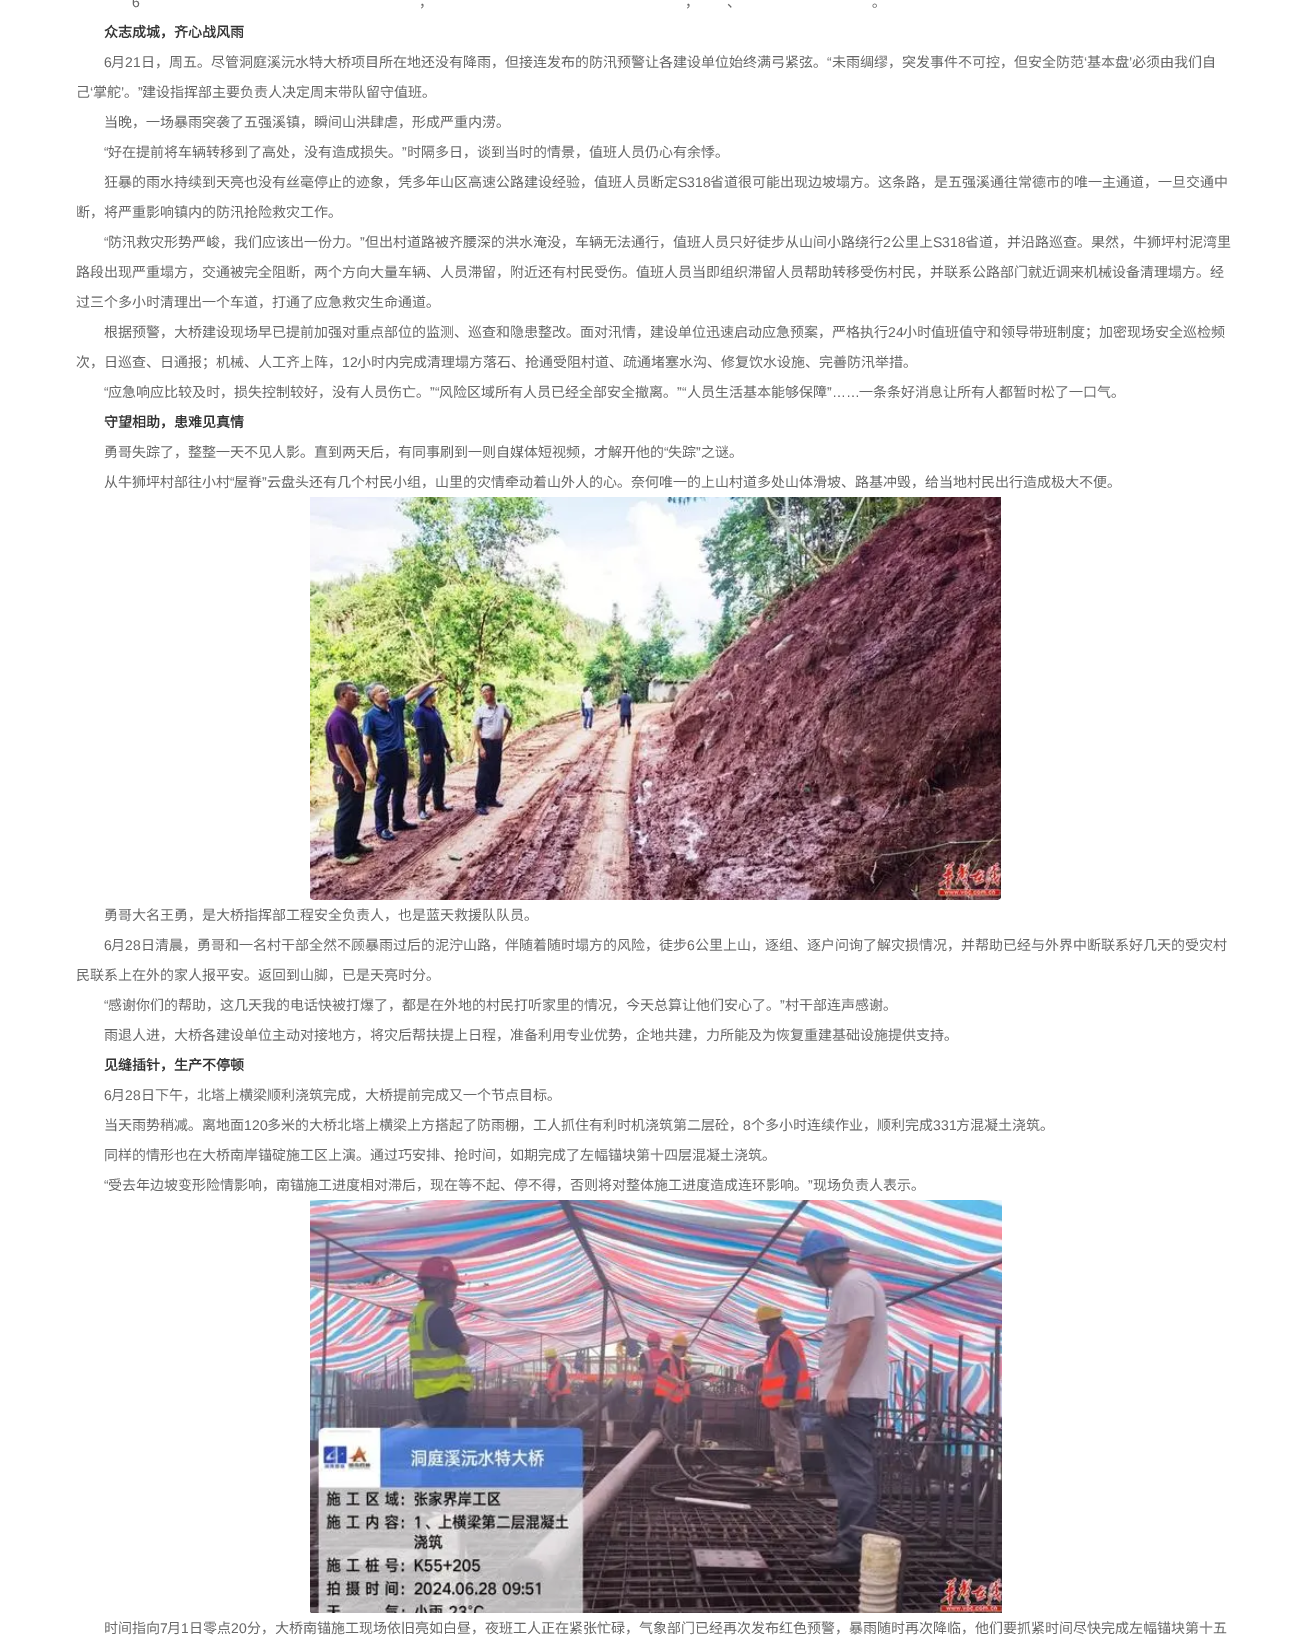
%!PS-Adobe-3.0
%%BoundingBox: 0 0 1311 1645
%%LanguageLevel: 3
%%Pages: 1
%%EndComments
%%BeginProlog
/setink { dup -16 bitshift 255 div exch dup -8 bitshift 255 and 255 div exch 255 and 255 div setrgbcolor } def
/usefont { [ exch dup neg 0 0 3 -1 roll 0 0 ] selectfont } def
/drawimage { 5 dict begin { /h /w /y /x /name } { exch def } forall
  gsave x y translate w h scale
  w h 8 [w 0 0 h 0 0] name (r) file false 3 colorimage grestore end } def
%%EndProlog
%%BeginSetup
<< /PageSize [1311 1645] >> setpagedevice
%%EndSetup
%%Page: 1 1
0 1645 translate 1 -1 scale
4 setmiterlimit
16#FFFFFF setink
0 0 1311 1645 rectfill
/LiberationSans-Regular 14 usefont
16#666666 setink
132 7 moveto (6) show
/NotoSansCJKSC-Regular 14 usefont
[
    [(，) 419 7]
    [(，) 685 7]
    [(、) 727 7]
    [(。) 872 7]
] { aload pop moveto show } forall
/NotoSansCJKSC-Bold 14 usefont
16#333333 setink
104 37 moveto (众志成城，齐心战风雨) show
/LiberationSans-Regular 14 usefont
16#666666 setink
104 67 moveto (6) show
/NotoSansCJKSC-Regular 14 usefont
111 67 moveto (月) show
/LiberationSans-Regular 14 usefont
125 67 moveto (21) show
/NotoSansCJKSC-Regular 14 usefont
141 67 moveto (日，周五。尽管洞庭溪沅水特大桥项目所在地还没有降雨，但接连发布的防汛预警让各建设单位始终满弓紧弦。) show
/LiberationSans-Regular 14 usefont
827 67 moveto (“) show
/NotoSansCJKSC-Regular 14 usefont
832 67 moveto (未雨绸缪，突发事件不可控，但安全防范 基本盘 必须由我们自) show
/LiberationSans-Regular 14 usefont
1084 67 moveto (‘) show
1129 67 moveto (’) show
/NotoSansCJKSC-Regular 14 usefont
76 97 moveto (己 掌舵 。) show
142 97 moveto (建设指挥部主要负责人决定周末带队留守值班。) show
/LiberationSans-Regular 14 usefont
[
    [(‘) 90 97]
    [(’) 121 97]
    [(”) 138 97]
] { aload pop moveto show } forall
/NotoSansCJKSC-Regular 14 usefont
104 127 moveto (当晚，一场暴雨突袭了五强溪镇，瞬间山洪肆虐，形成严重内涝。) show
/LiberationSans-Regular 14 usefont
104 157 moveto (“) show
/NotoSansCJKSC-Regular 14 usefont
108 157 moveto (好在提前将车辆转移到了高处，没有造成损失。) show
/LiberationSans-Regular 14 usefont
402 157 moveto (”) show
/NotoSansCJKSC-Regular 14 usefont
407 157 moveto (时隔多日，谈到当时的情景，值班人员仍心有余悸。) show
104 187 moveto (狂暴的雨水持续到天亮也没有丝毫停止的迹象，凭多年山区高速公路建设经验，值班人员断定) show
/LiberationSans-Regular 14 usefont
678 187 moveto (S318) show
/NotoSansCJKSC-Regular 14 usefont
710 187 moveto (省道很可能出现边坡塌方。这条路，是五强溪通往常德市的唯一主通道，一旦交通中) show
76 217 moveto (断，将严重影响镇内的防汛抢险救灾工作。) show
/LiberationSans-Regular 14 usefont
104 247 moveto (“) show
/NotoSansCJKSC-Regular 14 usefont
108 247 moveto (防汛救灾形势严峻，我们应该出一份力。) show
/LiberationSans-Regular 14 usefont
360 247 moveto (”) show
/NotoSansCJKSC-Regular 14 usefont
365 247 moveto (但出村道路被齐腰深的洪水淹没，车辆无法通行，值班人员只好徒步从山间小路绕行) show
/LiberationSans-Regular 14 usefont
883 247 moveto (2) show
/NotoSansCJKSC-Regular 14 usefont
891 247 moveto (公里上) show
/LiberationSans-Regular 14 usefont
933 247 moveto (S318) show
/NotoSansCJKSC-Regular 14 usefont
[
    [(省道，并沿路巡查。果然，牛狮坪村泥湾里) 965 247]
    [(路段出现严重塌方，交通被完全阻断，两个方向大量车辆、人员滞留，附近还有村民受伤。值班人员当即组织滞留人员帮助转移受伤村民，并联系公路部门就近调来机械设备清理塌方。经) 76 277]
    [(过三个多小时清理出一个车道，打通了应急救灾生命通道。) 76 307]
    [(根据预警，大桥建设现场早已提前加强对重点部位的监测、巡查和隐患整改。面对汛情，建设单位迅速启动应急预案，严格执行) 104 337]
] { aload pop moveto show } forall
/LiberationSans-Regular 14 usefont
888 337 moveto (24) show
/NotoSansCJKSC-Regular 14 usefont
903 337 moveto (小时值班值守和领导带班制度；加密现场安全巡检频) show
76 367 moveto (次，日巡查、日通报；机械、人工齐上阵，) show
/LiberationSans-Regular 14 usefont
342 367 moveto (12) show
/NotoSansCJKSC-Regular 14 usefont
357 367 moveto (小时内完成清理塌方落石、抢通受阻村道、疏通堵塞水沟、修复饮水设施、完善防汛举措。) show
/LiberationSans-Regular 14 usefont
104 397 moveto (“) show
/NotoSansCJKSC-Regular 14 usefont
108 397 moveto (应急响应比较及时，损失控制较好，没有人员伤亡。) show
/LiberationSans-Regular 14 usefont
430 397 moveto (”“) show
/NotoSansCJKSC-Regular 14 usefont
439 397 moveto (风险区域所有人员已经全部安全撤离。) show
/LiberationSans-Regular 14 usefont
677 397 moveto (”“) show
/NotoSansCJKSC-Regular 14 usefont
687 397 moveto (人员生活基本能够保障) show
/LiberationSans-Regular 14 usefont
827 397 moveto (”……) show
/NotoSansCJKSC-Regular 14 usefont
859 397 moveto (一条条好消息让所有人都暂时松了一口气。) show
/NotoSansCJKSC-Bold 14 usefont
16#333333 setink
104 427 moveto (守望相助，患难见真情) show
/NotoSansCJKSC-Regular 14 usefont
16#666666 setink
104 457 moveto (勇哥失踪了，整整一天不见人影。直到两天后，有同事刷到一则自媒体短视频，才解开他的) show
/LiberationSans-Regular 14 usefont
664 457 moveto (“) show
/NotoSansCJKSC-Regular 14 usefont
668 457 moveto (失踪) show
/LiberationSans-Regular 14 usefont
696 457 moveto (”) show
/NotoSansCJKSC-Regular 14 usefont
701 457 moveto (之谜。) show
104 487 moveto (从牛狮坪村部往小村) show
/LiberationSans-Regular 14 usefont
230 487 moveto (“) show
/NotoSansCJKSC-Regular 14 usefont
234 487 moveto (屋脊) show
/LiberationSans-Regular 14 usefont
262 487 moveto (”) show
/NotoSansCJKSC-Regular 14 usefont
267 487 moveto (云盘头还有几个村民小组，山里的灾情牵动着山外人的心。奈何唯一的上山村道多处山体滑坡、路基冲毁，给当地村民出行造成极大不便。) show
(img1.raw) 310 497 691 403 drawimage
104 920 moveto (勇哥大名王勇，是大桥指挥部工程安全负责人，也是蓝天救援队队员。) show
/LiberationSans-Regular 14 usefont
104 950 moveto (6) show
/NotoSansCJKSC-Regular 14 usefont
111 950 moveto (月) show
/LiberationSans-Regular 14 usefont
125 950 moveto (28) show
/NotoSansCJKSC-Regular 14 usefont
141 950 moveto (日清晨，勇哥和一名村干部全然不顾暴雨过后的泥泞山路，伴随着随时塌方的风险，徒步) show
/LiberationSans-Regular 14 usefont
687 950 moveto (6) show
/NotoSansCJKSC-Regular 14 usefont
695 950 moveto (公里上山，逐组、逐户问询了解灾损情况，并帮助已经与外界中断联系好几天的受灾村) show
76 980 moveto (民联系上在外的家人报平安。返回到山脚，已是天亮时分。) show
/LiberationSans-Regular 14 usefont
104 1010 moveto (“) show
/NotoSansCJKSC-Regular 14 usefont
108 1010 moveto (感谢你们的帮助，这几天我的电话快被打爆了，都是在外地的村民打听家里的情况，今天总算让他们安心了。) show
/LiberationSans-Regular 14 usefont
780 1010 moveto (”) show
/NotoSansCJKSC-Regular 14 usefont
785 1010 moveto (村干部连声感谢。) show
104 1040 moveto (雨退人进，大桥各建设单位主动对接地方，将灾后帮扶提上日程，准备利用专业优势，企地共建，力所能及为恢复重建基础设施提供支持。) show
/NotoSansCJKSC-Bold 14 usefont
16#333333 setink
104 1070 moveto (见缝插针，生产不停顿) show
/LiberationSans-Regular 14 usefont
16#666666 setink
104 1100 moveto (6) show
/NotoSansCJKSC-Regular 14 usefont
111 1100 moveto (月) show
/LiberationSans-Regular 14 usefont
125 1100 moveto (28) show
/NotoSansCJKSC-Regular 14 usefont
141 1100 moveto (日下午，北塔上横梁顺利浇筑完成，大桥提前完成又一个节点目标。) show
104 1130 moveto (当天雨势稍减。离地面) show
/LiberationSans-Regular 14 usefont
244 1130 moveto (120) show
/NotoSansCJKSC-Regular 14 usefont
267 1130 moveto (多米的大桥北塔上横梁上方搭起了防雨棚，工人抓住有利时机浇筑第二层砼，) show
/LiberationSans-Regular 14 usefont
743 1130 moveto (8) show
/NotoSansCJKSC-Regular 14 usefont
751 1130 moveto (个多小时连续作业，顺利完成) show
/LiberationSans-Regular 14 usefont
933 1130 moveto (331) show
/NotoSansCJKSC-Regular 14 usefont
956 1130 moveto (方混凝土浇筑。) show
104 1160 moveto (同样的情形也在大桥南岸锚碇施工区上演。通过巧安排、抢时间，如期完成了左幅锚块第十四层混凝土浇筑。) show
/LiberationSans-Regular 14 usefont
104 1190 moveto (“) show
/NotoSansCJKSC-Regular 14 usefont
108 1190 moveto (受去年边坡变形险情影响，南锚施工进度相对滞后，现在等不起、停不得，否则将对整体施工进度造成连环影响。) show
/LiberationSans-Regular 14 usefont
808 1190 moveto (”) show
/NotoSansCJKSC-Regular 14 usefont
813 1190 moveto (现场负责人表示。) show
(img2.raw) 310 1200 692 413 drawimage
104 1633 moveto (时间指向) show
/LiberationSans-Regular 14 usefont
160 1633 moveto (7) show
/NotoSansCJKSC-Regular 14 usefont
167 1633 moveto (月) show
/LiberationSans-Regular 14 usefont
181 1633 moveto (1) show
/NotoSansCJKSC-Regular 14 usefont
189 1633 moveto (日零点) show
/LiberationSans-Regular 14 usefont
231 1633 moveto (20) show
/NotoSansCJKSC-Regular 14 usefont
247 1633 moveto (分，大桥南锚施工现场依旧亮如白昼，夜班工人正在紧张忙碌，气象部门已经再次发布红色预警，暴雨随时再次降临，他们要抓紧时间尽快完成左幅锚块第十五) show
showpage
%%EOF
